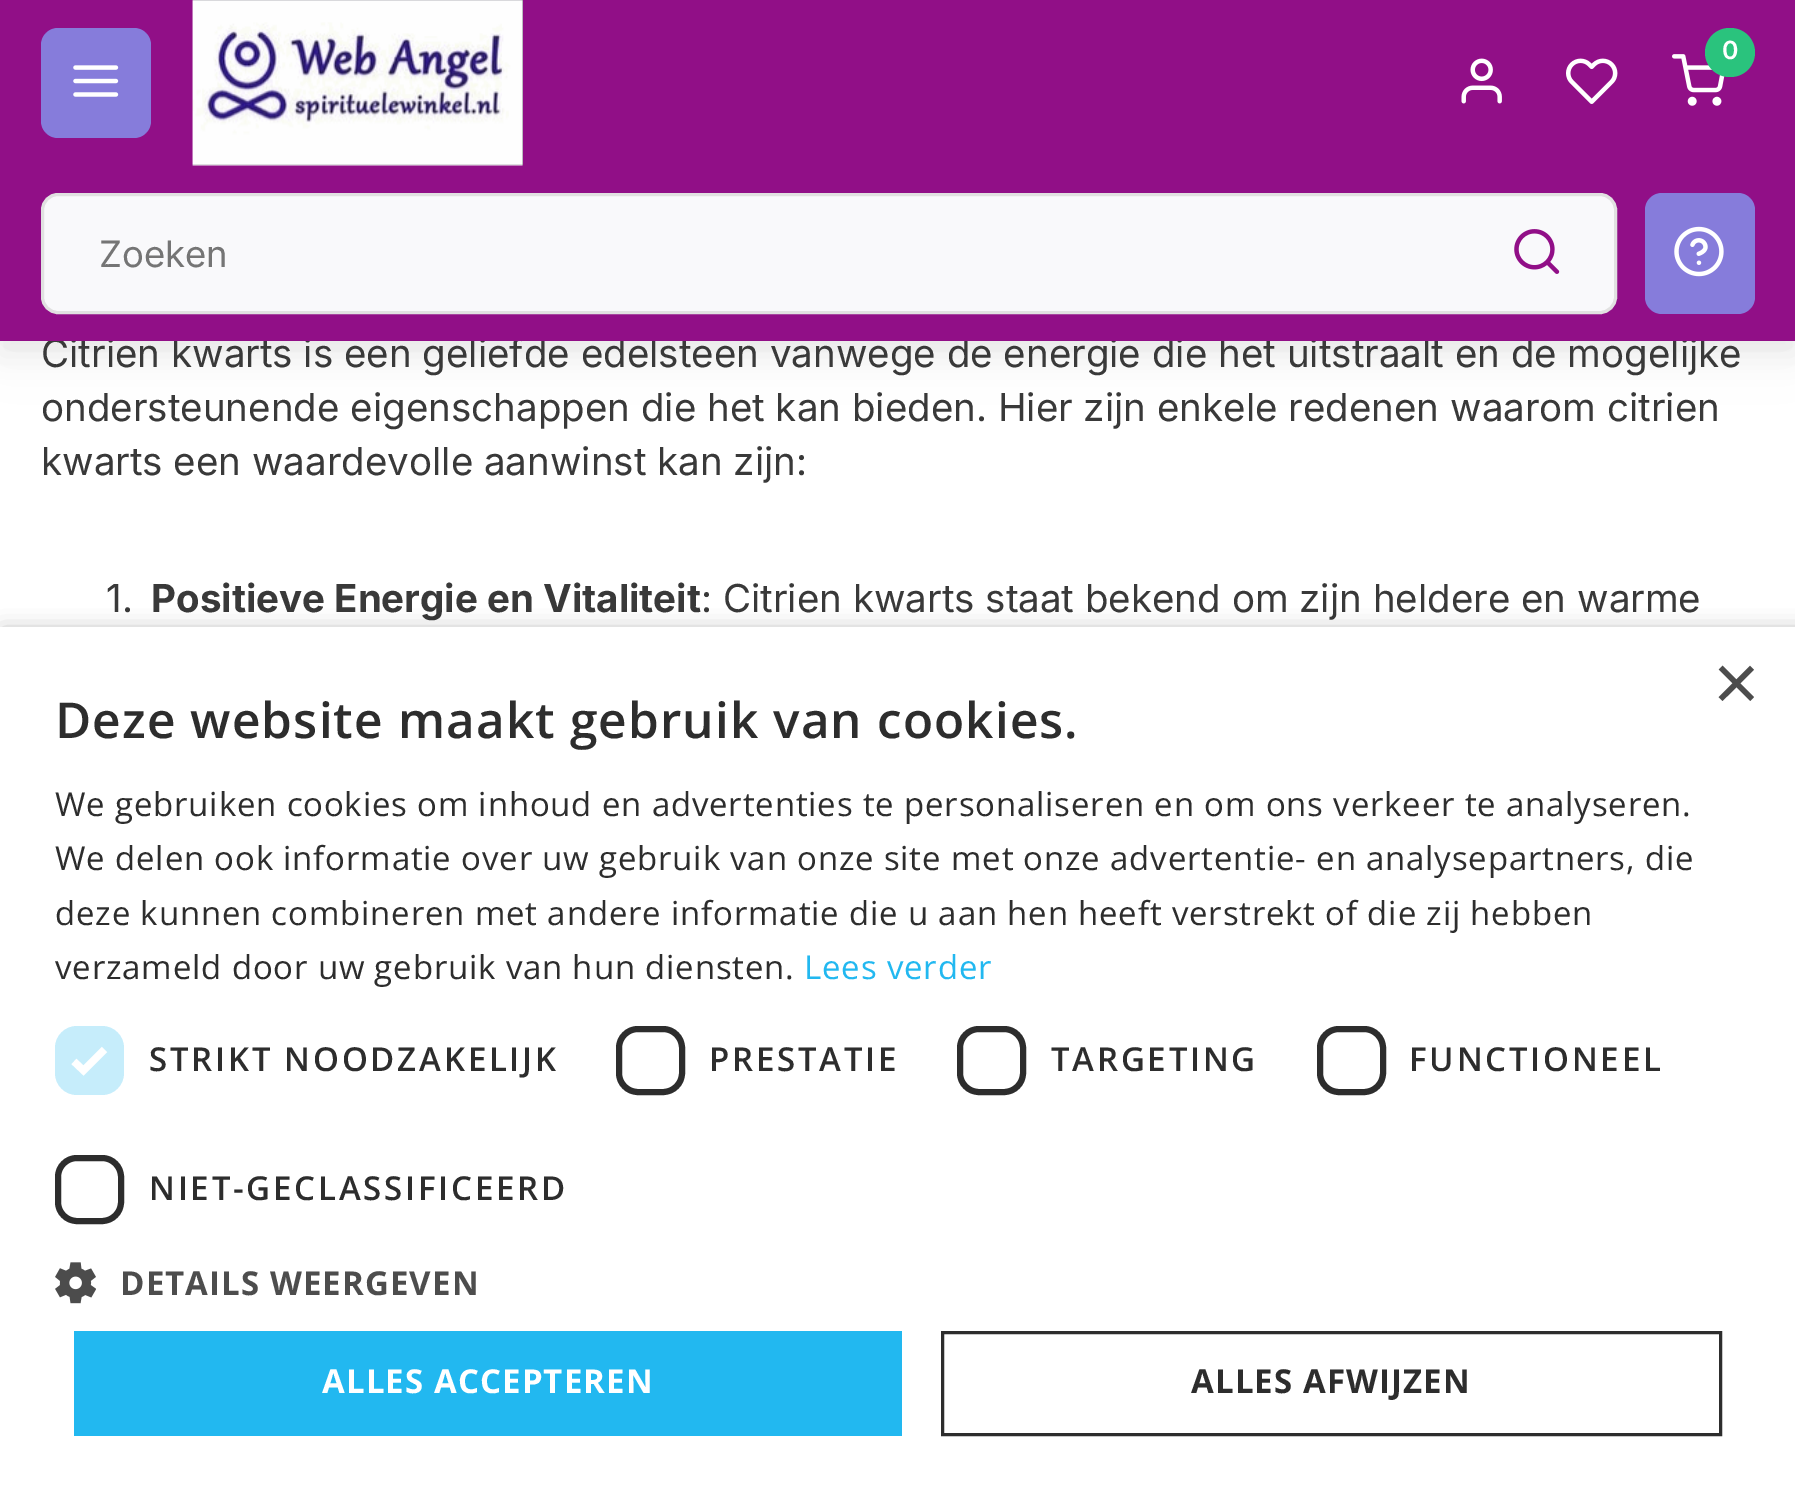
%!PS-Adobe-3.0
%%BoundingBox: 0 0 1795 1488
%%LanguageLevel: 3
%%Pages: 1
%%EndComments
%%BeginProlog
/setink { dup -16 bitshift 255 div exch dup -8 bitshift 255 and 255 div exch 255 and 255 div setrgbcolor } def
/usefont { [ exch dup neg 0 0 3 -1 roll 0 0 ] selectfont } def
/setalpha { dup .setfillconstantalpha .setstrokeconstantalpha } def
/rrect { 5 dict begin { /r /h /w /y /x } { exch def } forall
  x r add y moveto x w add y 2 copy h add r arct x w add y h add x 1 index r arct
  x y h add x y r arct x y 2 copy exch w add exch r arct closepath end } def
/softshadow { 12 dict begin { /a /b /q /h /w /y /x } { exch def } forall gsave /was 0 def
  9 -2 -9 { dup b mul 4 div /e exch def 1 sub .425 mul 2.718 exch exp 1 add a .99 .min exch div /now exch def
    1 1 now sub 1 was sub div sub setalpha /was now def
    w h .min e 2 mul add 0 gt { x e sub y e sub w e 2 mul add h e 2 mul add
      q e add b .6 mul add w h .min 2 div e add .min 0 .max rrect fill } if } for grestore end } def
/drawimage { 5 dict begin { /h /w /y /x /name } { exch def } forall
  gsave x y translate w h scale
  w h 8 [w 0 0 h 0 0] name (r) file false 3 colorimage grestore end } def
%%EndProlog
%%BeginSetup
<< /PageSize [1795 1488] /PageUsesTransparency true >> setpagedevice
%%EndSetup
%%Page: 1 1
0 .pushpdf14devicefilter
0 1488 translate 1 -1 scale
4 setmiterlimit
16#FFFFFF setink
0 0 1795 1488 rectfill
16#000000 setink
0 14 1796 341 0 14 0.05 softshadow
0 168 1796 176 0 34.5 0.05 softshadow
/Inter-Regular 38.5 usefont
16#393939 setink
41 367 moveto (Citrien kwarts is een geliefde edelsteen vanwege de energie die het uitstraalt en de mogelijke) show
16#910F87 setink
0 0 1795 341 rectfill
16#867CDB setink
41 28 110 110 17 rrect fill
(img1.raw) 73 65 46 32 drawimage
16#6A6973 setink
193 0 330 165 rectfill
(img2.raw) 192 0 331 166 drawimage
(img3.raw) 1672 54 53 52 drawimage
16#2AC37D setink
1705 28 50 49 24.5 rrect fill
/Inter-SemiBold 25 usefont
16#FFFFFF setink
1722 59 moveto (0) show
(img4.raw) 1461 58 41 46 drawimage
(img5.raw) 1566 58 52 46 drawimage
16#F9F9FB setink
42.5 194.5 1573 118 15.5 rrect gsave fill grestore
16#E1E1E1 setink
3 setlinewidth
stroke
/Inter-Regular 36.5 usefont
16#757575 setink
99 267 moveto (Zoeken) show
(img6.raw) 1514 229 46 45 drawimage
16#867CDB setink
1645 193 110 121 17 rrect fill
(img7.raw) 1674 226 50 51 drawimage
/Inter-Regular 38.5 usefont
16#393939 setink
[
    [(ondersteunende eigenschappen die het kan bieden. Hier zijn enkele redenen waarom citrien) 41 421]
    [(kwarts een waardevolle aanwinst kan zijn:) 41 475]
    [(1.) 106 612]
] { aload pop moveto show } forall
/Inter-Bold 38.5 usefont
151 612 moveto (Positieve Energie en Vitaliteit) show
/Inter-Regular 38.5 usefont
701 612 moveto (: Citrien kwarts staat bekend om zijn heldere en warme) show
16#000000 setink
3 633 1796 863 0 11 0.35 softshadow
16#FFFFFF setink
0 627 1795 861 rectfill
/LiberationSans-Regular 80 usefont
16#4D4D4D setink
1713 710 moveto (×) show
/OpenSans-SemiBold 49.5 usefont
16#2D2D2D setink
55 738 moveto 1.1 0 (Deze website maakt gebruik van cookies.) ashow
/OpenSans-Regular 33 usefont
55 816 moveto 0.82 0 (We gebruiken cookies om inhoud en advertenties te personaliseren en om ons verkeer te analyseren.) ashow
55 870 moveto 0.82 0 (We delen ook informatie over uw gebruik van onze site met onze advertentie- en analysepartners, die) ashow
55 925 moveto 0.82 0 (deze kunnen combineren met andere informatie die u aan hen heeft verstrekt of die zij hebben) ashow
55 979 moveto 0.82 0 (verzameld door uw gebruik van hun diensten.) ashow
16#22B8F0 setink
804 979 moveto 0.82 0 (Lees verder) ashow
16#C6EDFB setink
55 1026 69 69 22 rrect fill
16#FFFFFF setink
7.2 setlinewidth
74 1061.5 moveto 83.5 1070.5 lineto 104.5 1049.5 lineto stroke
/OpenSans-SemiBold 33 usefont
16#2D2D2D setink
149 1071 moveto 2.75 0 (STRIKT NOODZAKELIJK) ashow
6 setlinewidth
619 1029 63 63 19 rrect stroke
709 1071 moveto 2.75 0 (PRESTATIE) ashow
960 1029 63 63 19 rrect stroke
1051 1071 moveto 2.75 0 (TARGETING) ashow
1320 1029 63 63 19 rrect stroke
1409 1071 moveto 2.75 0 (FUNCTIONEEL) ashow
58 1158 63 63 19 rrect stroke
149 1200 moveto 2.75 0 (NIET-GECLASSIFICEERD) ashow
(img8.raw) 55 1262 41 42 drawimage
/OpenSans-Bold 33 usefont
16#4D4D4D setink
120 1295 moveto 1.1 0 (DETAILS WEERGEVEN) ashow
16#22B8F0 setink
74 1331 828 105 rectfill
16#FFFFFF setink
322 1393 moveto 1.1 0 (ALLES ACCEPTEREN) ashow
16#2D2D2D setink
3 setlinewidth
942.5 1332.5 778 102 rectstroke
1191 1393 moveto 1.1 0 (ALLES AFWIJZEN) ashow
.poppdf14devicefilter showpage
%%EOF
